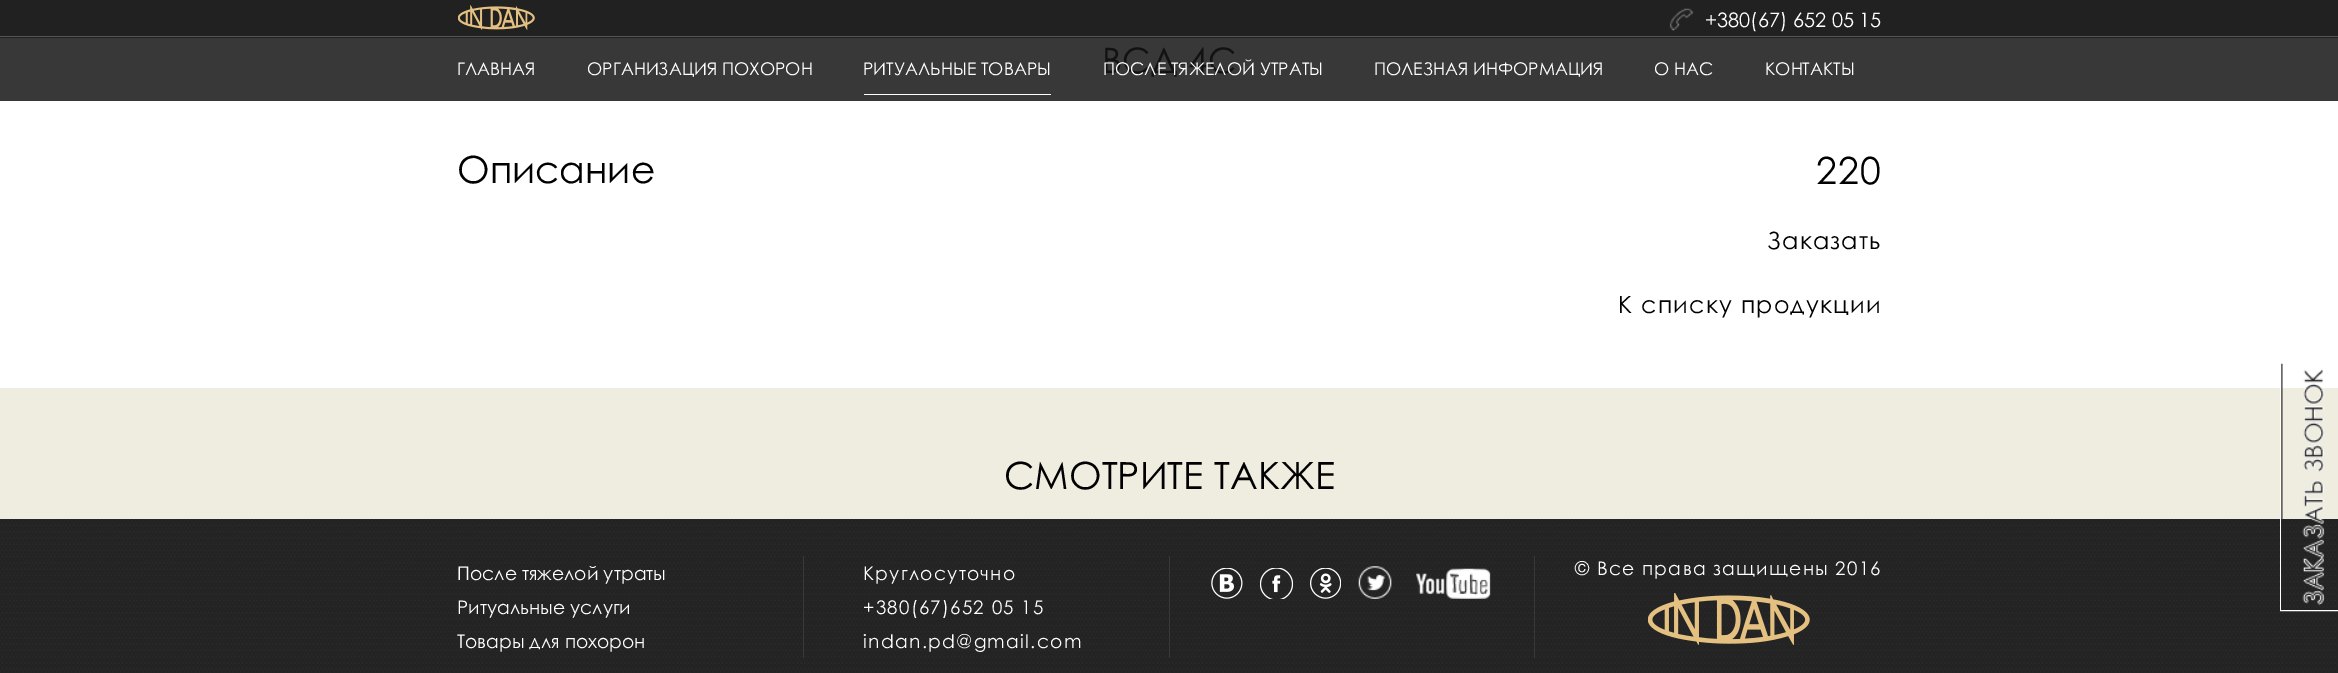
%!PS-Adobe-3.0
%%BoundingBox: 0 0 2338 673
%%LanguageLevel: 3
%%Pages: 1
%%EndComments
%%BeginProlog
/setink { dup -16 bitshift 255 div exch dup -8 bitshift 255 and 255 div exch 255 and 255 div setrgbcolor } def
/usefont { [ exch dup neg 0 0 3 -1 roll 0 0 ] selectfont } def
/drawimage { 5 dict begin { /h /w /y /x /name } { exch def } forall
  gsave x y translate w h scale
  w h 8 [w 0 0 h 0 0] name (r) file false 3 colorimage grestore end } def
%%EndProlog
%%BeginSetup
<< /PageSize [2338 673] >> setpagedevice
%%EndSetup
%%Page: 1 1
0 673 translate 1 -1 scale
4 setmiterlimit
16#FFFFFF setink
0 0 2338 673 rectfill
[
    [0 38 2338 63 16#383838]
    [0 0 2338 38 16#212121]
    [0 36 2338 1 16#565656]
] { aload pop setink rectfill } forall
(img1.raw) 458 5 77 25 drawimage
(img2.raw) 1669 8 25 23 drawimage
/CenturyGothic-Regular 20 usefont
16#FFFFFF setink
1705 27 moveto (+380\(67\) 652 05 15) show
/CenturyGothic-Regular 17.5 usefont
457 75 moveto (ГЛАВНАЯ) show
587 75 moveto (ОРГАНИЗАЦИЯ ПОХОРОН) show
864 94 187 1 rectfill
863 75 moveto (РИТУАЛЬНЫЕ ТОВАРЫ) show
/CenturyGothic-Regular 35 usefont
16#121212 setink
1102 73 moveto (ВСД-4С) show
/CenturyGothic-Regular 17.5 usefont
16#FFFFFF setink
[
    [(ПОСЛЕ ТЯЖЕЛОЙ УТРАТЫ) 1103 75]
    [(ПОЛЕЗНАЯ ИНФОРМАЦИЯ) 1374 75]
    [(О НАС) 1654 75]
    [(КОНТАКТЫ) 1765 75]
] { aload pop moveto show } forall
/CenturyGothic-Regular 37.5 usefont
16#000000 setink
457 183 moveto (Описание) show
1816 184 moveto 1.25 0 (220) ashow
/CenturyGothic-Regular 23.75 usefont
1767 249 moveto 1.25 0 (Заказать) ashow
1618 313 moveto 1.25 0 (К списку продукции) ashow
16#EFEDE0 setink
0 388 2338 131 rectfill
/CenturyGothic-Regular 37.5 usefont
16#000000 setink
1004 489 moveto (СМОТРИТЕ ТАКЖЕ) show
(img4.raw) 0 519 2338 154 drawimage
16#FFFFFF setink
2280.5 363.5 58 247 rectstroke
(img3.raw) 2281 363 44 248 drawimage
16#383838 setink
803 556 1 102 rectfill
/CenturyGothic-Regular 18.75 usefont
16#FFFFFF setink
[
    [(После тяжелой утраты) 457 580]
    [(Ритуальные услуги) 457 614]
    [(Товары для похорон) 457 648]
] { aload pop moveto show } forall
16#383838 setink
1169 556 1 102 rectfill
16#FFFFFF setink
863 580 moveto 1.25 0 (Круглосуточно) ashow
863 614 moveto 1.25 0 (+380\(67\)652 05 15) ashow
863 648 moveto 1.25 0 (indan.pd@gmail.com) ashow
16#383838 setink
1534 556 1 102 rectfill
(img5.raw) 1211 568 32 31 drawimage
(img6.raw) 1260 568 33 31 drawimage
(img7.raw) 1310 568 31 31 drawimage
(img8.raw) 1358 566 34 33 drawimage
(img9.raw) 1416 568 75 31 drawimage
16#FFFFFF setink
1575 575 moveto 1.25 0 (© Все права защищены 2016) ashow
(img10.raw) 1648 593 162 52 drawimage
showpage
%%EOF
